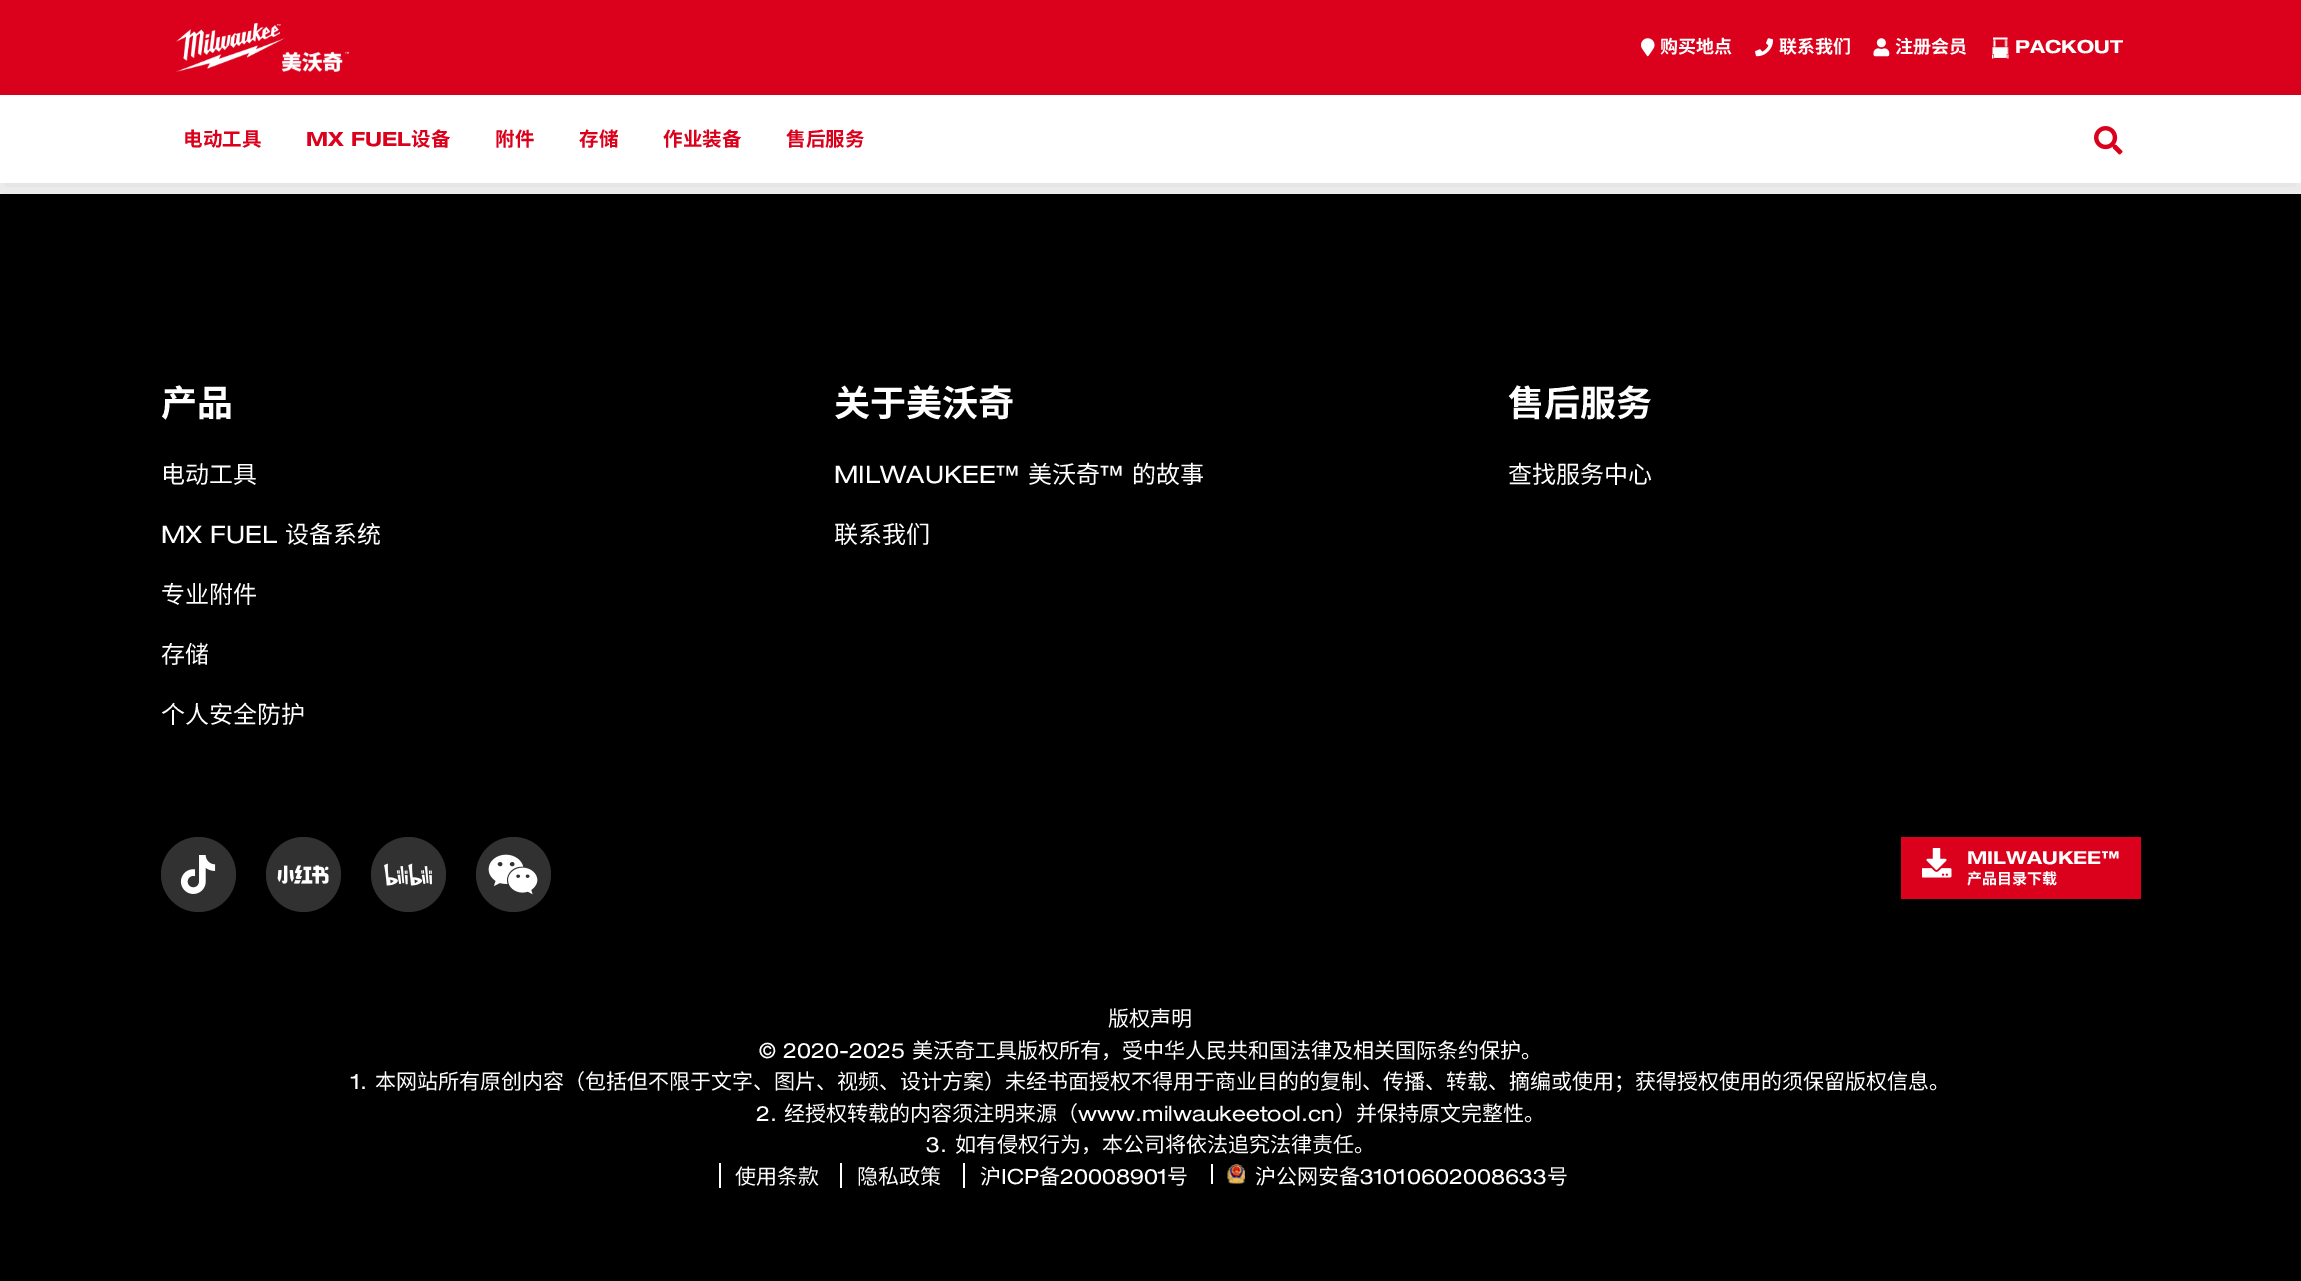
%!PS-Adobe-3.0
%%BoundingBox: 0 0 2301 1281
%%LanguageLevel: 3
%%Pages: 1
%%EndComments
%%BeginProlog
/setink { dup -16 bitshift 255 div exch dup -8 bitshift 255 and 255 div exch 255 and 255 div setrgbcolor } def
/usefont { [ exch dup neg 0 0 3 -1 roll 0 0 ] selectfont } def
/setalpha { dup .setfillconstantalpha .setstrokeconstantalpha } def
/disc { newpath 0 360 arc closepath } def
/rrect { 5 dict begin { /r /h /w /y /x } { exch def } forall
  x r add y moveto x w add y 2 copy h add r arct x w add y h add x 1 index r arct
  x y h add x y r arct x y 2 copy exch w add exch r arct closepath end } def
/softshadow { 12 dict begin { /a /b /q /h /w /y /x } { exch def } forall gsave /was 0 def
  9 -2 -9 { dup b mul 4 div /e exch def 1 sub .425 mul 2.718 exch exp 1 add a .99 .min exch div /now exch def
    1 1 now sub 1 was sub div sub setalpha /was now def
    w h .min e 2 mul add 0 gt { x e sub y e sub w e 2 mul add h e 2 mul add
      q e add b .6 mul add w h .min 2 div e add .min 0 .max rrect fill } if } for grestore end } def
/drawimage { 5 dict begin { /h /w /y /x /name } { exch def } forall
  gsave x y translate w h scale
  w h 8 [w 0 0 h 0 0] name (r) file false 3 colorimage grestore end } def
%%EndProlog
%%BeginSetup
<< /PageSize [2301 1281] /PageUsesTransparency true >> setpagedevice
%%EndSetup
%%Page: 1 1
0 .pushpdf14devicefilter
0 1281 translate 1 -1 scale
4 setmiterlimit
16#F8F8F8 setink
0 0 2301 1281 rectfill
16#DB011C setink
0 0 2301 95 rectfill
16#000000 setink
0 194 2301 1087 rectfill
0 102 2301 89 0 15 0.1 softshadow
(img1.raw) 176 22 173 50 drawimage
(img2.raw) 1641 38 14 19 drawimage
/NotoSansSC-Bold 18 usefont
16#FFFFFF setink
1660 53 moveto (购买地点) show
(img3.raw) 1755 38 18 19 drawimage
1779 53 moveto (联系我们) show
(img4.raw) 1873 38 17 19 drawimage
1895 53 moveto (注册会员) show
(img5.raw) 1992 37 17 22 drawimage
/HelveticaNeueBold-Bold 18 usefont
2015 53 moveto (PACKOUT) show
0 95 2301 88 rectfill
(img6.raw) 2094 126 29 29 drawimage
/NotoSansSC-Bold 19.5 usefont
16#DB011C setink
183 146 moveto (电动工具) show
/HelveticaNeueBold-Bold 19.5 usefont
306 146 moveto (MX FUEL) show
/NotoSansSC-Bold 19.5 usefont
[
    [(设备) 411 146]
    [(附件) 495 146]
    [(存储) 579 146]
    [(作业装备) 663 146]
    [(售后服务) 786 146]
] { aload pop moveto show } forall
/NotoSansSC-Bold 36 usefont
16#FFFFFF setink
161 416 moveto (产品) show
/NotoSansSC-Regular 24 usefont
161 483 moveto (电动工具) show
/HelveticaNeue-Regular 24 usefont
161 543 moveto (MX FUEL) show
/NotoSansSC-Regular 24 usefont
[
    [(设备系统) 285 543]
    [(专业附件) 161 603]
    [(存储) 161 663]
    [(个人安全防护) 161 723]
] { aload pop moveto show } forall
/NotoSansSC-Bold 36 usefont
834 416 moveto (关于美沃奇) show
/HelveticaNeue-Regular 24 usefont
834 483 moveto (MILWAUKEE™) show
/NotoSansSC-Regular 24 usefont
1028 483 moveto (美沃奇) show
/HelveticaNeue-Regular 24 usefont
1100 483 moveto (™) show
/NotoSansSC-Regular 24 usefont
1132 483 moveto (的故事) show
834 543 moveto (联系我们) show
/NotoSansSC-Bold 36 usefont
1508 416 moveto (售后服务) show
/NotoSansSC-Regular 24 usefont
1508 483 moveto (查找服务中心) show
16#313131 setink
198.5 874.5 37.5 disc fill
(img7.raw) 180 855 36 39 drawimage
303.5 874.5 37.5 disc fill
(img8.raw) 277 865 52 19 drawimage
408.5 874.5 37.5 disc fill
(img9.raw) 384 863 48 23 drawimage
513.5 874.5 37.5 disc fill
(img10.raw) 488 854 50 41 drawimage
16#DB011C setink
1901 837 240 62 rectfill
(img11.raw) 1922 848 30 30 drawimage
/HelveticaNeueBold-Bold 18 usefont
16#FFFFFF setink
1967 864 moveto (MILWAUKEE™) show
/NotoSansSC-Bold 15 usefont
1967 884 moveto (产品目录下载) show
/NotoSansSC-Regular 21 usefont
1108 1026 moveto (版权声明) show
/HelveticaNeue-Regular 21 usefont
759 1058 moveto (© 2020-2025) show
/NotoSansSC-Regular 21 usefont
912 1058 moveto (美沃奇工具版权所有，受中华人民共和国法律及相关国际条约保护。) show
/HelveticaNeue-Regular 21 usefont
351 1089 moveto (1.) show
/NotoSansSC-Regular 21 usefont
375 1089 moveto (本网站所有原创内容（包括但不限于文字、图片、视频、设计方案）未经书面授权不得用于商业目的的复制、传播、转载、摘编或使用；获得授权使用的须保留版权信息。) show
/HelveticaNeue-Regular 21 usefont
756 1121 moveto (2.) show
/NotoSansSC-Regular 21 usefont
784 1121 moveto (经授权转载的内容须注明来源（) show
/HelveticaNeue-Regular 21 usefont
1078 1121 moveto (www.milwaukeetool.cn) show
/NotoSansSC-Regular 21 usefont
1335 1121 moveto (）并保持原文完整性。) show
/HelveticaNeue-Regular 21 usefont
926 1152 moveto (3.) show
/NotoSansSC-Regular 21 usefont
955 1152 moveto (如有侵权行为，本公司将依法追究法律责任。) show
735 1184 moveto (使用条款) show
719 1163 2 25 rectfill
857 1184 moveto (隐私政策) show
840 1163 2 25 rectfill
980 1184 moveto (沪) show
963 1163 2 25 rectfill
/HelveticaNeue-Regular 21 usefont
1001 1184 moveto (ICP) show
/NotoSansSC-Regular 21 usefont
1039 1184 moveto (备) show
/HelveticaNeue-Regular 21 usefont
1060 1184 moveto (20008901) show
/NotoSansSC-Regular 21 usefont
1167 1184 moveto (号) show
1211 1164 2 20 rectfill
(img12.raw) 1227 1164 18 20 drawimage
1255 1184 moveto (沪公网安备) show
/HelveticaNeue-Regular 21 usefont
1360 1184 moveto (31010602008633) show
/NotoSansSC-Regular 21 usefont
1547 1184 moveto (号) show
.poppdf14devicefilter showpage
%%EOF
